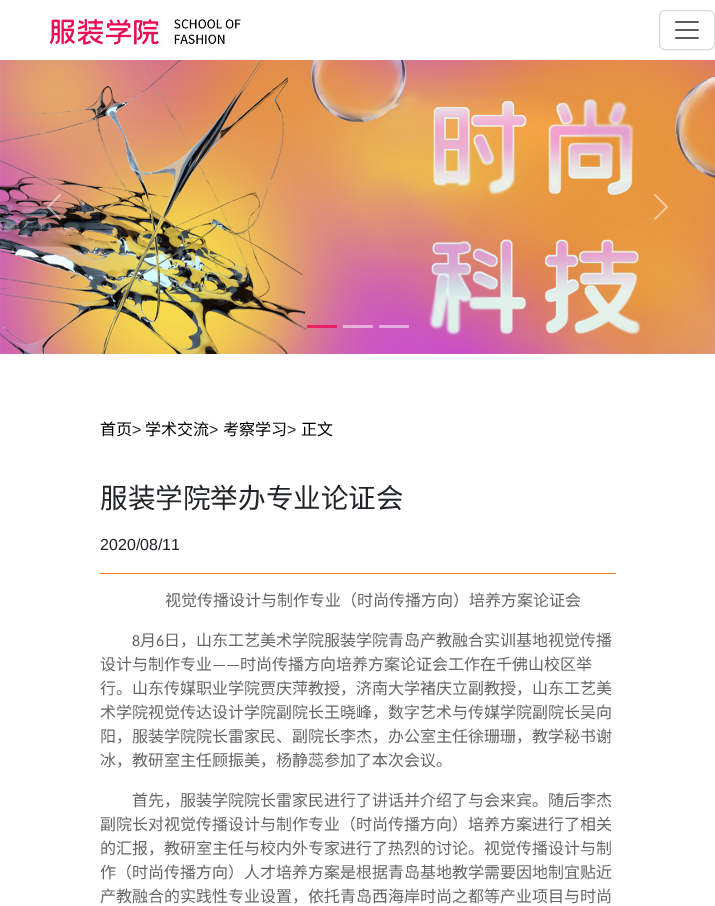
%!PS-Adobe-3.0
%%BoundingBox: 0 0 715 906
%%LanguageLevel: 3
%%Pages: 1
%%EndComments
%%BeginProlog
/setink { dup -16 bitshift 255 div exch dup -8 bitshift 255 and 255 div exch 255 and 255 div setrgbcolor } def
/usefont { [ exch dup neg 0 0 3 -1 roll 0 0 ] selectfont } def
/setalpha { dup .setfillconstantalpha .setstrokeconstantalpha } def
/rrect { 5 dict begin { /r /h /w /y /x } { exch def } forall
  x r add y moveto x w add y 2 copy h add r arct x w add y h add x 1 index r arct
  x y h add x y r arct x y 2 copy exch w add exch r arct closepath end } def
/drawimage { 5 dict begin { /h /w /y /x /name } { exch def } forall
  gsave x y translate w h scale
  w h 8 [w 0 0 h 0 0] name (r) file false 3 colorimage grestore end } def
%%EndProlog
%%BeginSetup
<< /PageSize [715 906] /PageUsesTransparency true >> setpagedevice
%%EndSetup
%%Page: 1 1
0 .pushpdf14devicefilter
0 906 translate 1 -1 scale
4 setmiterlimit
16#FFFFFF setink
0 0 715 906 rectfill
(img1.raw) 49 16 192 29 drawimage
16#D9D9D9 setink
659.5 10.5 55 39 5.5 rrect stroke
(img2.raw) 675 21 24 18 drawimage
(img3.raw) 0 60 715 294 drawimage
(img4.raw) 47 194 14 26 drawimage
(img5.raw) 654 194 14 26 drawimage
0.8 setalpha
[
    [307 325 30 3 16#EB0C55]
] { aload pop setink rectfill } forall
0.5 setalpha
[
    [343 325 30 3 16#FFFFFF]
    [379 325 30 3 16#FFFFFF]
] { aload pop setink rectfill } forall
/NotoSansCJKSC-Regular 16 usefont
1 setalpha
16#000000 setink
100 435 moveto (首页) show
/LiberationSans-Regular 16 usefont
16#212529 setink
132 435 moveto (>) show
/NotoSansCJKSC-Regular 16 usefont
16#000000 setink
145 435 moveto (学术交流) show
/LiberationSans-Regular 16 usefont
16#212529 setink
209 435 moveto (>) show
/NotoSansCJKSC-Regular 16 usefont
16#000000 setink
223 435 moveto (考察学习) show
/LiberationSans-Regular 16 usefont
16#212529 setink
287 435 moveto (>) show
/NotoSansCJKSC-Regular 16 usefont
16#000000 setink
301 435 moveto (正文) show
/NotoSansCJKSC-Regular 27.6 usefont
16#212529 setink
100 508 moveto (服装学院举办专业论证会) show
/LiberationSans-Regular 16 usefont
100 550 moveto (2020/08/11) show
16#FC751B setink
100 573 516 1 rectfill
/NotoSansCJKSC-Regular 16 usefont
16#666666 setink
165 606 moveto (视觉传播设计与制作专业（时尚传播方向）培养方案论证会) show
/Carlito-Regular 16 usefont
132 646 moveto (8) show
/NotoSansCJKSC-Regular 16 usefont
140 646 moveto (月) show
/Carlito-Regular 16 usefont
156 646 moveto (6) show
/NotoSansCJKSC-Regular 16 usefont
164 646 moveto (日，山东工艺美术学院服装学院青岛产教融合实训基地视觉传播) show
100 670 moveto (设计与制作专业) show
/Carlito-Regular 16 usefont
212 670 moveto (——) show
/NotoSansCJKSC-Regular 16 usefont
[
    [(时尚传播方向培养方案论证会工作在千佛山校区举) 240 670]
    [(行。山东传媒职业学院贾庆萍教授，济南大学褚庆立副教授，山东工艺美) 100 694]
    [(术学院视觉传达设计学院副院长王晓峰，数字艺术与传媒学院副院长吴向) 100 718]
    [(阳，服装学院院长雷家民、副院长李杰，办公室主任徐珊珊，教学秘书谢) 100 742]
    [(冰，教研室主任顾振美，杨静蕊参加了本次会议。) 100 766]
    [(首先，服装学院院长雷家民进行了讲话并介绍了与会来宾。随后李杰) 132 806]
    [(副院长对视觉传播设计与制作专业（时尚传播方向）培养方案进行了相关) 100 830]
    [(的汇报，教研室主任与校内外专家进行了热烈的讨论。视觉传播设计与制) 100 854]
    [(作（时尚传播方向）人才培养方案是根据青岛基地教学需要因地制宜贴近) 100 878]
    [(产教融合的实践性专业设置，依托青岛西海岸时尚之都等产业项目与时尚) 100 902]
] { aload pop moveto show } forall
.poppdf14devicefilter showpage
%%EOF
